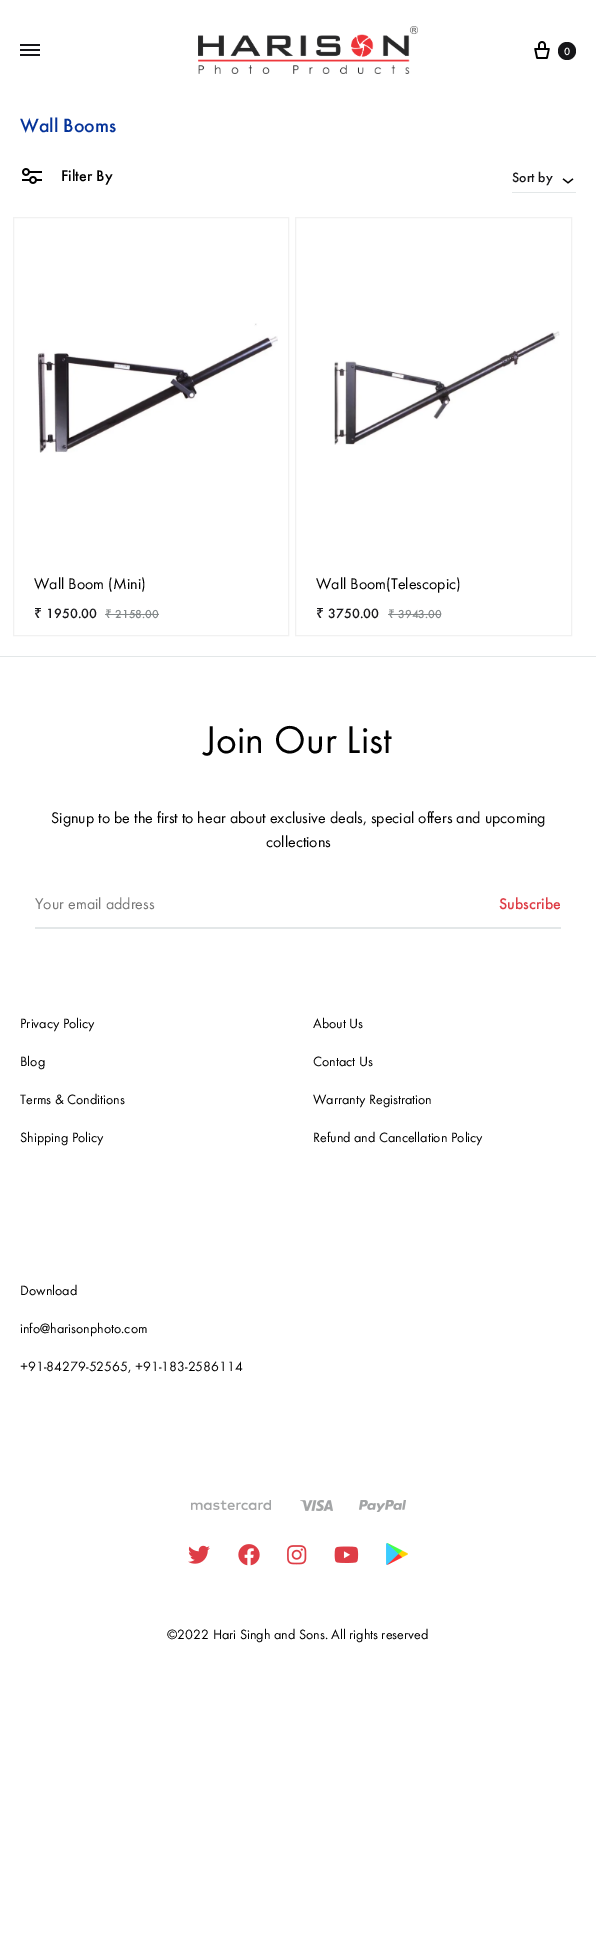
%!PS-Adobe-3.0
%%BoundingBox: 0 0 596 1942
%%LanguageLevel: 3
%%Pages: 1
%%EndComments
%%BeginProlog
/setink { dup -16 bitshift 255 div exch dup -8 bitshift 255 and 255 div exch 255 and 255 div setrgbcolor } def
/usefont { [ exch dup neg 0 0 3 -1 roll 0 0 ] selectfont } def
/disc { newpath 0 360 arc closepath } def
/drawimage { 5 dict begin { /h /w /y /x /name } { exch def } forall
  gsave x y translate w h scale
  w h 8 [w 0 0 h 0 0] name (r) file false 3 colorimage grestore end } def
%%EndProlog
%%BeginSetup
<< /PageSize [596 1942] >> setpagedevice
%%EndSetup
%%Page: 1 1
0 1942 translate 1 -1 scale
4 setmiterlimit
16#FFFFFF setink
0 0 596 1942 rectfill
[
    [20 49 20 2 16#161619]
    [20 44 20 2 16#161619]
    [20 54 20 2 16#161619]
] { aload pop setink rectfill } forall
(img1.raw) 198 26 220 48 drawimage
(img2.raw) 534 41 16 18 drawimage
567 51 9 disc fill
/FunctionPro-Medium 11 usefont
16#FFFFFF setink
564 55 moveto (0) show
/FunctionPro-Medium 20 usefont
16#053399 setink
20 132 moveto (Wall Booms) show
(img3.raw) 22 168 20 16 drawimage
/FunctionPro-Medium 16 usefont
16#000000 setink
61 181 moveto (Filter By) show
16#E3E7E8 setink
512 192 64 1 rectfill
/FunctionPro-Medium 14 usefont
16#161619 setink
512 182 moveto (Sort by) show
(img4.raw) 562 178 12 6 drawimage
16#F1F1F1 setink
13.5 217.5 275 418 rectstroke
(img5.raw) 37 323 241 130 drawimage
/FunctionPro-Regular 16 usefont
16#000000 setink
34 589 moveto (Wall Boom \(Mini\)) show
/NotoSans-Medium 14 usefont
16#161619 setink
34 618 moveto (₹) show
/FunctionPro-Medium 14 usefont
46 618 moveto (1950.00) show
/NotoSans-Medium 12 usefont
16#838889 setink
105 618 moveto (₹) show
105 614 7 1 rectfill
/FunctionPro-Medium 12 usefont
115 618 moveto (2158.00) show
112 614 47 1 rectfill
16#F1F1F1 setink
295.5 217.5 276 418 rectstroke
(img6.raw) 334 331 226 114 drawimage
/FunctionPro-Regular 16 usefont
16#000000 setink
316 589 moveto (Wall Boom\(Telescopic\)) show
/NotoSans-Medium 14 usefont
16#161619 setink
316 618 moveto (₹) show
/FunctionPro-Medium 14 usefont
328 618 moveto (3750.00) show
/NotoSans-Medium 12 usefont
16#838889 setink
388 618 moveto (₹) show
388 614 7 1 rectfill
/FunctionPro-Medium 12 usefont
398 618 moveto (3943.00) show
395 614 46 1 rectfill
16#E3E7E8 setink
0 656 596 1 rectfill
/FunctionPro-Regular 40 usefont
16#000000 setink
204 753 moveto (Join Our List) show
/FunctionPro-Regular 16 usefont
51 823 moveto (Signup to be the first to hear about exclusive deals, special offers and upcoming) show
266 847 moveto (collections) show
16#E3E7E8 setink
35 927 526 2 rectfill
16#757575 setink
35 909 moveto (Your email address) show
/FunctionPro-Medium 16 usefont
16#DE3D46 setink
499 909 moveto (Subscribe) show
/FunctionPro-Regular 14 usefont
16#000000 setink
[
    [(Privacy Policy) 20 1028]
    [(Blog) 20 1066]
    [(Terms & Conditions) 20 1104]
    [(Shipping Policy) 20 1142]
    [(About Us) 313 1028]
    [(Contact Us) 313 1066]
    [(Warranty Registration) 313 1104]
    [(Refund and Cancellation Policy) 313 1142]
    [(Download) 20 1295]
    [(info@harisonphoto.com) 20 1333]
    [(+91-84279-52565, +91-183-2586114) 20 1371]
] { aload pop moveto show } forall
(img7.raw) 191 1500 215 12 drawimage
(img8.raw) 188 1545 22 19 drawimage
(img9.raw) 238 1544 22 22 drawimage
(img10.raw) 287 1545 20 20 drawimage
(img11.raw) 334 1546 25 17 drawimage
(img12.raw) 386 1543 22 22 drawimage
167 1639 moveto (©2022 Hari Singh and Sons. All rights reserved) show
showpage
%%EOF
